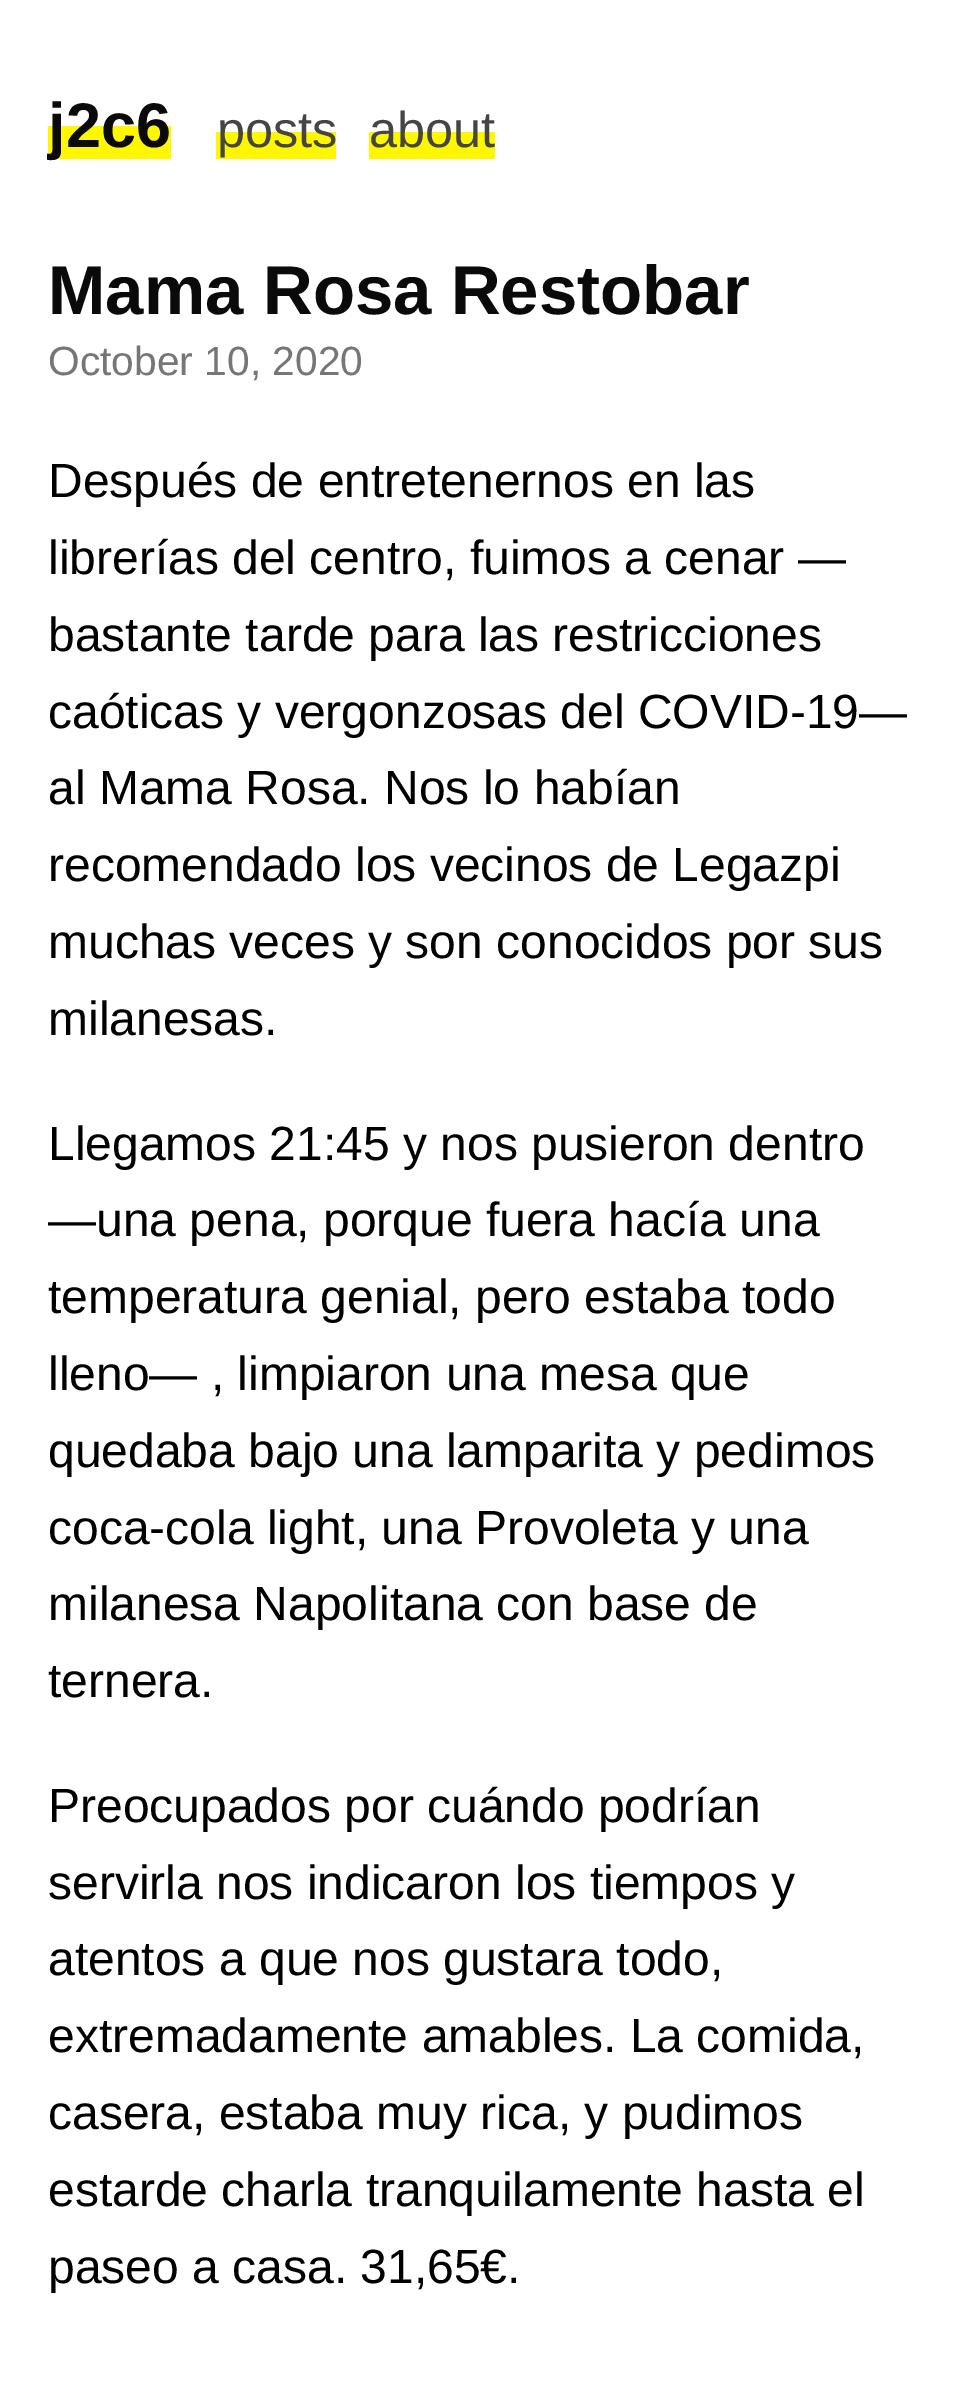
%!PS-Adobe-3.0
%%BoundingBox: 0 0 966 2387
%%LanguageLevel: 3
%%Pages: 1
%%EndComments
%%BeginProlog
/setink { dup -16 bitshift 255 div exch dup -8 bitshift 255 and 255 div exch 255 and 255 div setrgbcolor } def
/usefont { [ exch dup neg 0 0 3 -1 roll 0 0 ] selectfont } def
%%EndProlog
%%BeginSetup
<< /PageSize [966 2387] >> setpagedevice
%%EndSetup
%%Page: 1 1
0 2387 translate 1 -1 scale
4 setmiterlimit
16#FFFFFF setink
0 0 966 2387 rectfill
16#FFF700 setink
48 126 123 33 rectfill
/LiberationSans-Bold 63 usefont
16#0A0A0A setink
48 147 moveto (j2c6) show
16#FFF700 setink
216 132 120 27 rectfill
/LiberationSans-Regular 50.5 usefont
16#454545 setink
217 147 moveto (posts) show
16#FFF700 setink
369 132 126 27 rectfill
16#454545 setink
369 147 moveto (about) show
/LiberationSans-Bold 69 usefont
16#0A0A0A setink
48 314 moveto (Mama Rosa Restobar) show
/LiberationSans-Regular 40.75 usefont
16#767676 setink
48 375 moveto (October 10, 2020) show
/LiberationSans-Regular 48 usefont
16#000000 setink
[
    [(Después de entretenernos en las) 48 497]
    [(librerías del centro, fuimos a cenar —) 48 574]
    [(bastante tarde para las restricciones) 48 651]
    [(caóticas y vergonzosas del COVID-19—) 48 728]
    [(al Mama Rosa. Nos lo habían) 48 804]
    [(recomendado los vecinos de Legazpi) 48 881]
    [(muchas veces y son conocidos por sus) 48 958]
    [(milanesas.) 48 1035]
    [(Llegamos 21:45 y nos pusieron dentro) 48 1160]
    [(—una pena, porque fuera hacía una) 48 1236]
    [(temperatura genial, pero estaba todo) 48 1313]
    [(lleno— , limpiaron una mesa que) 48 1390]
    [(quedaba bajo una lamparita y pedimos) 48 1467]
    [(coca-cola light, una Provoleta y una) 48 1544]
    [(milanesa Napolitana con base de) 48 1620]
    [(ternera.) 48 1697]
    [(Preocupados por cuándo podrían) 48 1822]
    [(servirla nos indicaron los tiempos y) 48 1899]
    [(atentos a que nos gustara todo,) 48 1975]
    [(extremadamente amables. La comida,) 48 2052]
    [(casera, estaba muy rica, y pudimos) 48 2129]
    [(estarde charla tranquilamente hasta el) 48 2206]
    [(paseo a casa. 31,65€.) 48 2283]
] { aload pop moveto show } forall
showpage
%%EOF
